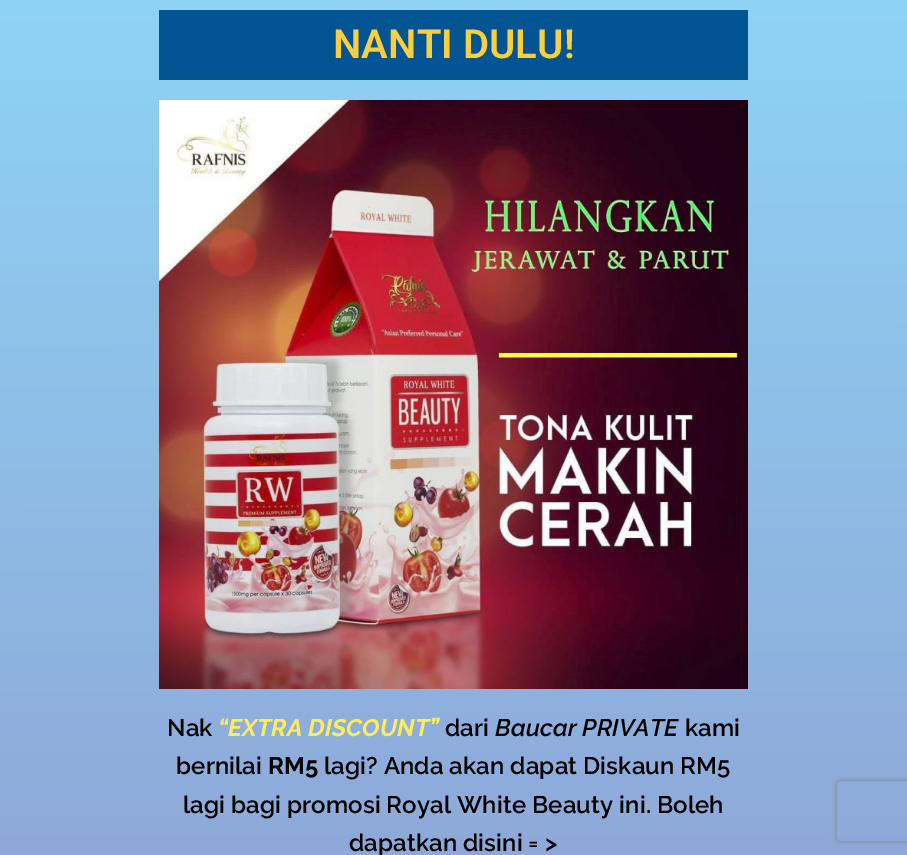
%!PS-Adobe-3.0
%%BoundingBox: 0 0 907 855
%%LanguageLevel: 3
%%Pages: 1
%%EndComments
%%BeginProlog
/setink { dup -16 bitshift 255 div exch dup -8 bitshift 255 and 255 div exch 255 and 255 div setrgbcolor } def
/usefont { [ exch dup neg 0 0 3 -1 roll 0 0 ] selectfont } def
/setalpha { dup .setfillconstantalpha .setstrokeconstantalpha } def
/rrect { 5 dict begin { /r /h /w /y /x } { exch def } forall
  x r add y moveto x w add y 2 copy h add r arct x w add y h add x 1 index r arct
  x y h add x y r arct x y 2 copy exch w add exch r arct closepath end } def
/softshadow { 12 dict begin { /a /b /q /h /w /y /x } { exch def } forall gsave /was 0 def
  9 -2 -9 { dup b mul 4 div /e exch def 1 sub .425 mul 2.718 exch exp 1 add a .99 .min exch div /now exch def
    1 1 now sub 1 was sub div sub setalpha /was now def
    w h .min e 2 mul add 0 gt { x e sub y e sub w e 2 mul add h e 2 mul add
      q e add b .6 mul add w h .min 2 div e add .min 0 .max rrect fill } if } for grestore end } def
/drawimage { 5 dict begin { /h /w /y /x /name } { exch def } forall
  gsave x y translate w h scale
  w h 8 [w 0 0 h 0 0] name (r) file false 3 colorimage grestore end } def
%%EndProlog
%%BeginSetup
<< /PageSize [907 855] /PageUsesTransparency true >> setpagedevice
%%EndSetup
%%Page: 1 1
0 .pushpdf14devicefilter
0 855 translate 1 -1 scale
4 setmiterlimit
16#FFFFFF setink
0 0 907 855 rectfill
gsave 0 0 moveto 907 0 lineto 907 855 lineto 0 855 lineto closepath clip newpath
<< /ShadingType 2 /ColorSpace /DeviceRGB /Coords [453 0 454 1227] /Extend [true true] /Function << /FunctionType 2 /Domain [0 1] /C0 [0.557 0.827 0.965] /C1 [0.561 0.592 0.8] /N 1 >> >> shfill grestore
16#025492 setink
159 10 589 70 rectfill
/Roboto-SemiBold 40 usefont
16#F8CF40 setink
333 58 moveto 0.1 0 (NANTI DULU!) ashow
(img1.raw) 159 100 589 589 drawimage
/Raleway-SemiBold 24 usefont
16#000000 setink
167 736 moveto 0.1 0 (Nak) ashow
/Raleway-BoldItalic 24 usefont
16#FFEC59 setink
218 736 moveto 0.1 0 (“EXTRA DISCOUNT”) ashow
/Raleway-SemiBold 24 usefont
16#000000 setink
445 736 moveto 0.1 0 (dari) ashow
/Raleway-SemiBoldItalic 24 usefont
495 736 moveto 0.1 0 (Baucar PRIVATE) ashow
/Raleway-SemiBold 24 usefont
685 736 moveto 0.1 0 (kami) ashow
176 774 moveto 0.1 0 (bernilai) ashow
/Raleway-Bold 24 usefont
268 774 moveto 0.1 0 (RM5) ashow
/Raleway-SemiBold 24 usefont
324 774 moveto 0.1 0 (lagi? Anda akan dapat Diskaun RM5) ashow
183 813 moveto 0.1 0 (lagi bagi promosi Royal White Beauty ini. Boleh) ashow
349 851 moveto 0.1 0 (dapatkan disini = >) ashow
gsave
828 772 moveto 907 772 lineto 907 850 lineto 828 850 lineto closepath 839 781 moveto 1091 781 lineto 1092 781 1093 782 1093 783 curveto 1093 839 lineto 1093 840 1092 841 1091 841 curveto 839 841 lineto 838 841 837 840 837 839 curveto 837 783 lineto 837 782 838 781 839 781 curveto closepath eoclip newpath
16#808080 setink
837 781 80 60 2 2.5 1 softshadow
grestore
.poppdf14devicefilter showpage
%%EOF
